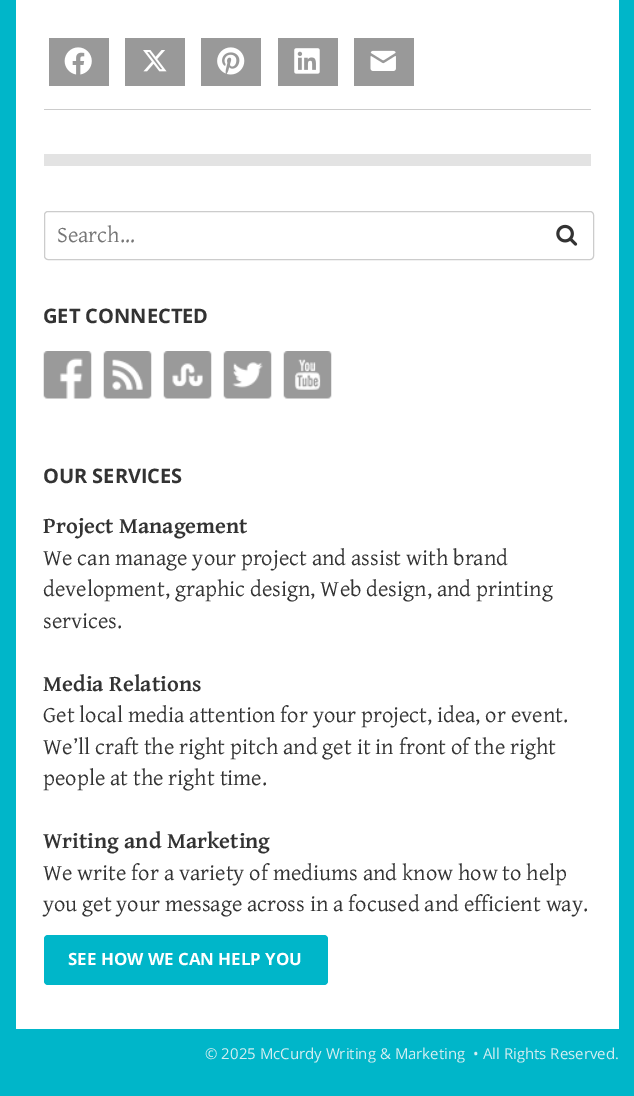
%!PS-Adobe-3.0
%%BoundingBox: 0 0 634 1096
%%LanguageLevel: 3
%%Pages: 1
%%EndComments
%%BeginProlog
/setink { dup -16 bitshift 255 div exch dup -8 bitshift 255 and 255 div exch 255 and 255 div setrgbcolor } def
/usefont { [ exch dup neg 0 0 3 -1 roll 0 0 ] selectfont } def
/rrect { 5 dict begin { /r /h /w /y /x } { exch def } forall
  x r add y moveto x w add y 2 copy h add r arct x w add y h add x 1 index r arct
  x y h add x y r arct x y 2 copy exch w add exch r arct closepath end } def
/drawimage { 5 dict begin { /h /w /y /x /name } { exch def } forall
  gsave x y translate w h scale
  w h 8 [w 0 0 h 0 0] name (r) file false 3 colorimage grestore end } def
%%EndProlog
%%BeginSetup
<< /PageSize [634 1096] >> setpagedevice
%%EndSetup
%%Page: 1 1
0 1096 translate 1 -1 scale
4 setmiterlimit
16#00B6C9 setink
0 0 634 1096 rectfill
[
    [16 0 603 1029 16#FFFFFF]
    [44 109 547 1 16#CCCCCC]
    [49 38 60 48 16#999999]
] { aload pop setink rectfill } forall
(img1.raw) 64 47 28 28 drawimage
125 38 60 48 rectfill
(img2.raw) 143 50 24 22 drawimage
201 38 60 48 rectfill
(img3.raw) 217 47 28 28 drawimage
278 38 60 48 rectfill
(img4.raw) 294 48 26 26 drawimage
354 38 60 48 rectfill
(img5.raw) 370 50 26 21 drawimage
16#E3E3E3 setink
44 154 547 12 rectfill
16#CCCCCC setink
44.5 211.5 549 48 3.5 rrect stroke
/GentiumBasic-Regular 22.5 usefont
16#757575 setink
57 242 moveto (Search…) show
(img6.raw) 556 224 22 22 drawimage
/OpenSans-Bold 20 usefont
16#333333 setink
43 323 moveto (GET CONNECTED) show
(img7.raw) 43 351 49 48 drawimage
(img8.raw) 103 351 49 48 drawimage
(img9.raw) 163 351 49 48 drawimage
(img10.raw) 223 351 49 48 drawimage
(img11.raw) 283 351 49 48 drawimage
43 483 moveto (OUR SERVICES) show
/GentiumBasic-Bold 22.5 usefont
43 533 moveto (Project Management) show
/GentiumBasic-Regular 22.5 usefont
[
    [(We can manage your project and assist with brand) 43 565]
    [(development, graphic design, Web design, and printing) 43 596]
    [(services.) 43 628]
] { aload pop moveto show } forall
/GentiumBasic-Bold 22.5 usefont
43 691 moveto (Media Relations) show
/GentiumBasic-Regular 22.5 usefont
[
    [(Get local media attention for your project, idea, or event.) 43 722]
    [(We’ll craft the right pitch and get it in front of the right) 43 754]
    [(people at the right time.) 43 785]
] { aload pop moveto show } forall
/GentiumBasic-Bold 22.5 usefont
43 848 moveto (Writing and Marketing) show
/GentiumBasic-Regular 22.5 usefont
43 880 moveto (We write for a variety of mediums and know how to help) show
43 911 moveto (you get your message across in a focused and efficient way.) show
16#00B6C9 setink
44 935 284 50 4 rrect fill
/OpenSans-Bold 16.9 usefont
16#FFFFFF setink
68 965 moveto (SEE HOW WE CAN HELP YOU) show
/OpenSans-Regular 15 usefont
16#D4EEF2 setink
205 1059 moveto (© 2025 McCurdy Writing & Marketing  • All Rights Reserved.) show
showpage
%%EOF
